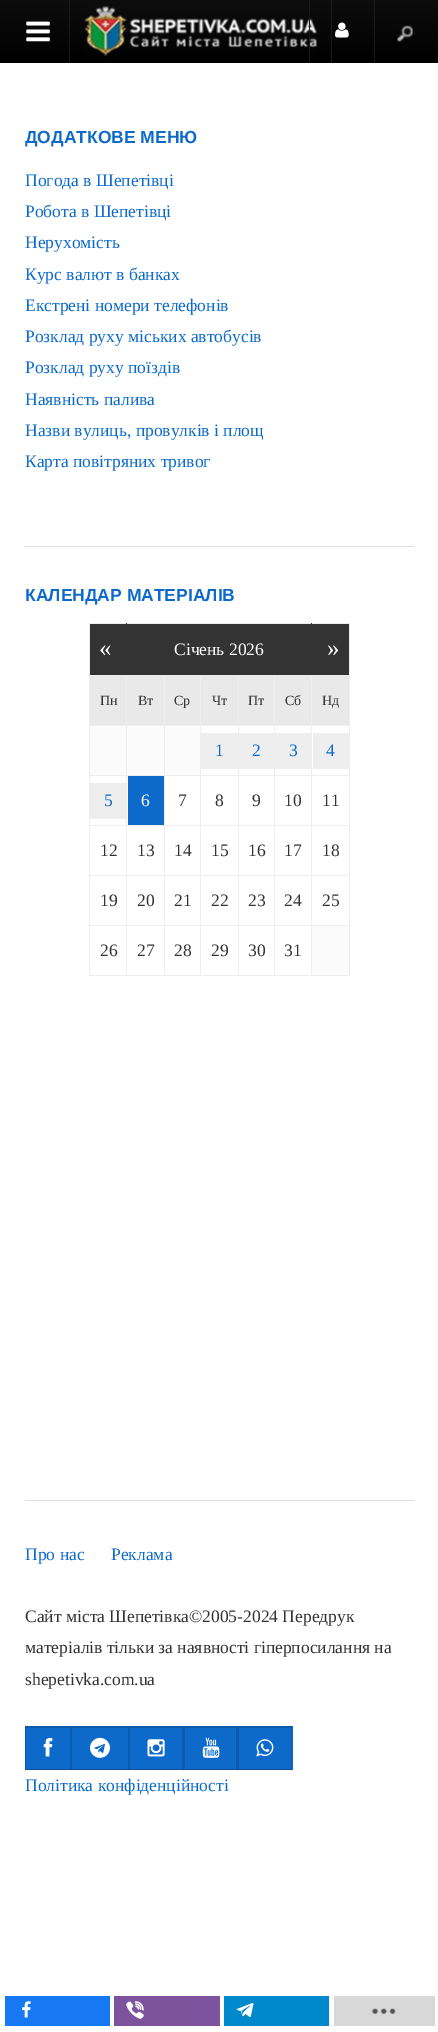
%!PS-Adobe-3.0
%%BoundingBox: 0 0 438 2032
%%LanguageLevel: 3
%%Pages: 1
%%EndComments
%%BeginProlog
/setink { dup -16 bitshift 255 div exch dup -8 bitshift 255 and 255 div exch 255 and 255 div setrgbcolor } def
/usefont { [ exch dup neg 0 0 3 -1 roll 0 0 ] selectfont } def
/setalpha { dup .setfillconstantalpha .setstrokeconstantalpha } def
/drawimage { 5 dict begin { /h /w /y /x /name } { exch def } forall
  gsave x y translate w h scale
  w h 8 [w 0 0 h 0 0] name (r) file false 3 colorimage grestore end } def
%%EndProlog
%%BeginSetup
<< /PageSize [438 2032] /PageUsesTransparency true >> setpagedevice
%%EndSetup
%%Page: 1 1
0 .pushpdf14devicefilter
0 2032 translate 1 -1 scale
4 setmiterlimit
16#FFFFFF setink
0 0 438 2032 rectfill
gsave 0 0 moveto 374 0 lineto 374 63 lineto 0 63 lineto closepath clip newpath
<< /ShadingType 2 /ColorSpace /DeviceRGB /Coords [219 0 219 63] /Extend [true true] /Function << /FunctionType 2 /Domain [0 1] /C0 [0.051 0.051 0.051] /C1 [0 0 0] /N 1 >> >> shfill grestore
16#1A1A1A setink
331 0 1 63 rectfill
69 0 1 63 rectfill
(img1.raw) 84 6 233 51 drawimage
(img2.raw) 26 21 24 21 drawimage
309 0 1 63 rectfill
(img3.raw) 335 22 14 16 drawimage
gsave 375 0 moveto 438 0 lineto 438 63 lineto 375 63 lineto closepath clip newpath
<< /ShadingType 2 /ColorSpace /DeviceRGB /Coords [406 0 406 63] /Extend [true true] /Function << /FunctionType 2 /Domain [0 1] /C0 [0.051 0.051 0.051] /C1 [0 0 0] /N 1 >> >> shfill grestore
374 0 1 63 rectfill
(img4.raw) 397 25 16 17 drawimage
16#DDDDDD setink
25 546 389 1 rectfill
/LiberationSans-Bold 17.5 usefont
16#0D6ACA setink
25 143 moveto (ДОДАТКОВЕ МЕНЮ) show
/LiberationSerif-Regular 17.5 usefont
[
    [(Погода в Шепетівці) 25 186]
    [(Робота в Шепетівці) 25 217]
    [(Нерухомість) 25 248]
    [(Курс валют в банках) 25 280]
    [(Екстрені номери телефонів) 25 311]
    [(Розклад руху міських автобусів) 25 342]
    [(Розклад руху поїздів) 25 373]
    [(Наявність палива) 25 405]
    [(Назви вулиць, провулків і площ) 25 436]
    [(Карта повітряних тривог) 25 467]
] { aload pop moveto show } forall
/LiberationSans-Bold 17.5 usefont
25 601 moveto (КАЛЕНДАР МАТЕРІАЛІВ) show
[
    [90 624 221 51 16#333333]
    [89 623 261 1 16#EEEEEE]
    [311 675 39 1 16#EEEEEE]
    [311 725 39 1 16#EEEEEE]
    [311 775 39 1 16#EEEEEE]
    [311 825 39 1 16#EEEEEE]
    [311 875 39 1 16#EEEEEE]
    [311 925 39 1 16#EEEEEE]
    [349 925 1 51 16#EEEEEE]
    [311 975 39 1 16#EEEEEE]
    [311 925 1 51 16#EEEEEE]
    [274 925 39 1 16#EEEEEE]
    [311 875 1 51 16#EEEEEE]
    [274 875 39 1 16#EEEEEE]
    [311 825 1 51 16#EEEEEE]
    [274 825 39 1 16#EEEEEE]
    [311 775 1 51 16#EEEEEE]
    [274 775 39 1 16#EEEEEE]
    [311 725 1 51 16#EEEEEE]
    [274 725 39 1 16#EEEEEE]
    [311 675 1 51 16#EEEEEE]
    [311 623 1 53 16#333333]
    [90 676 74 49 16#E9E9E9]
    [274 975 39 1 16#EEEEEE]
    [274 925 1 51 16#EEEEEE]
    [238 925 37 1 16#EEEEEE]
    [274 875 1 51 16#EEEEEE]
    [238 875 37 1 16#EEEEEE]
    [274 825 1 51 16#EEEEEE]
    [238 825 37 1 16#EEEEEE]
    [274 775 1 51 16#EEEEEE]
    [238 775 37 1 16#EEEEEE]
    [274 725 1 51 16#EEEEEE]
    [238 725 37 1 16#EEEEEE]
    [238 975 37 1 16#EEEEEE]
    [238 925 1 51 16#EEEEEE]
    [200 925 39 1 16#EEEEEE]
    [238 875 1 51 16#EEEEEE]
    [200 875 39 1 16#EEEEEE]
    [238 825 1 51 16#EEEEEE]
    [200 825 39 1 16#EEEEEE]
    [238 775 1 51 16#EEEEEE]
    [200 775 39 1 16#EEEEEE]
    [238 725 1 51 16#EEEEEE]
    [200 725 39 1 16#EEEEEE]
    [200 975 39 1 16#EEEEEE]
    [200 925 1 51 16#EEEEEE]
    [164 925 37 1 16#EEEEEE]
    [200 875 1 51 16#EEEEEE]
    [164 875 37 1 16#EEEEEE]
    [200 825 1 51 16#EEEEEE]
    [164 825 37 1 16#EEEEEE]
    [200 775 1 51 16#EEEEEE]
    [164 775 37 1 16#EEEEEE]
    [200 725 1 51 16#EEEEEE]
    [164 725 37 1 16#EEEEEE]
    [164 975 37 1 16#EEEEEE]
    [164 925 1 51 16#EEEEEE]
    [126 925 39 1 16#EEEEEE]
    [164 875 1 51 16#EEEEEE]
    [126 875 39 1 16#EEEEEE]
    [164 825 1 51 16#EEEEEE]
    [126 825 39 1 16#EEEEEE]
    [164 775 1 51 16#EEEEEE]
    [126 775 39 1 16#EEEEEE]
    [164 725 1 51 16#EEEEEE]
    [126 725 39 1 16#EEEEEE]
    [90 726 74 49 16#FBFBFB]
    [126 975 39 1 16#EEEEEE]
    [126 925 1 51 16#EEEEEE]
    [89 925 39 1 16#EEEEEE]
    [126 875 1 51 16#EEEEEE]
    [89 875 39 1 16#EEEEEE]
    [126 825 1 51 16#EEEEEE]
    [89 825 39 1 16#EEEEEE]
    [126 775 1 51 16#EEEEEE]
    [89 775 39 1 16#EEEEEE]
    [126 725 1 51 16#EEEEEE]
    [89 725 39 1 16#EEEEEE]
    [126 675 1 51 16#EEEEEE]
    [164 675 1 51 16#EEEEEE]
    [200 675 1 51 16#EEEEEE]
    [238 675 1 51 16#EEEEEE]
    [274 675 1 51 16#EEEEEE]
    [126 675 187 1 16#EEEEEE]
    [126 623 1 53 16#333333]
    [89 975 39 1 16#EEEEEE]
    [89 925 1 51 16#EEEEEE]
    [89 875 1 51 16#EEEEEE]
    [89 825 1 51 16#EEEEEE]
    [89 775 1 51 16#EEEEEE]
    [89 675 1 101 16#EEEEEE]
    [89 675 39 1 16#EEEEEE]
    [89 623 1 53 16#EEEEEE]
] { aload pop setink rectfill } forall
/LiberationSerif-Regular 25 usefont
16#FFFFFF setink
99 656 moveto («) show
/LiberationSerif-Regular 17.5 usefont
174 655 moveto (Січень 2026) show
[
    [312 624 37 51 16#333333]
    [349 875 1 51 16#EEEEEE]
    [349 825 1 51 16#EEEEEE]
    [349 775 1 51 16#EEEEEE]
    [349 725 1 51 16#EEEEEE]
    [349 675 1 51 16#EEEEEE]
    [349 623 1 53 16#EEEEEE]
] { aload pop setink rectfill } forall
/LiberationSerif-Regular 25 usefont
16#FFFFFF setink
327 656 moveto (») show
/LiberationSerif-Regular 14 usefont
16#333333 setink
100 705 moveto (Пн) show
138 705 moveto (Вт) show
16#E9E9E9 setink
165 676 35 49 rectfill
16#333333 setink
174 705 moveto (Ср) show
16#E9E9E9 setink
201 676 37 49 rectfill
16#333333 setink
212 705 moveto (Чт) show
16#E9E9E9 setink
239 676 35 49 rectfill
16#333333 setink
248 705 moveto (Пт) show
16#E9E9E9 setink
275 676 36 49 rectfill
16#333333 setink
285 705 moveto (Сб) show
16#E9E9E9 setink
312 676 37 49 rectfill
16#333333 setink
322 705 moveto (Нд) show
16#FBFBFB setink
165 726 35 49 rectfill
16#EEEEEE setink
201 733 37 36 rectfill
/LiberationSerif-Regular 17.5 usefont
16#0D6ACA setink
215 756 moveto (1) show
16#EEEEEE setink
239 733 35 36 rectfill
16#0D6ACA setink
252 756 moveto (2) show
16#EEEEEE setink
275 733 36 36 rectfill
16#0D6ACA setink
289 756 moveto (3) show
16#EEEEEE setink
313 733 36 36 rectfill
16#0D6ACA setink
326 756 moveto (4) show
16#EEEEEE setink
90 783 36 36 rectfill
16#0D6ACA setink
104 806 moveto (5) show
128 776 36 49 rectfill
16#FFFFFF setink
141 806 moveto (6) show
16#333333 setink
[
    [(7) 178 806]
    [(8) 215 806]
    [(9) 252 806]
    [(10) 284 806]
    [(11) 322 806]
    [(12) 100 856]
    [(13) 137 856]
    [(14) 174 856]
    [(15) 211 856]
    [(16) 248 856]
    [(17) 284 856]
    [(18) 322 856]
    [(19) 100 906]
    [(20) 137 906]
    [(21) 174 906]
    [(22) 211 906]
    [(23) 248 906]
    [(24) 284 906]
    [(25) 322 906]
    [(26) 100 956]
    [(27) 137 956]
    [(28) 174 956]
    [(29) 211 956]
    [(30) 248 956]
    [(31) 284 956]
] { aload pop moveto show } forall
16#FBFBFB setink
312 926 37 49 rectfill
16#DDDDDD setink
25 1500 389 1 rectfill
16#0D6ACA setink
25 1560 moveto (Про нас) show
111 1560 moveto (Реклама) show
16#333333 setink
[
    [(Сайт міста Шепетівка©2005-2024 Передрук) 25 1622]
    [(матеріалів тільки за наявності гіперпосилання на) 25 1653]
    [(shepetivka.com.ua) 25 1685]
] { aload pop moveto show } forall
16#0D6ACA setink
25 1726 268 44 rectfill
16#0B5AAC setink
25 1726 moveto 71 1726 lineto 70 1728 lineto 26 1728 lineto closepath fill
0.15 setalpha
16#000000 setink
71 1726 moveto 71 1770 lineto 70 1769 lineto 70 1728 lineto closepath fill
0.25 setalpha
71 1770 moveto 25 1770 lineto 26 1769 lineto 70 1769 lineto closepath fill
0.15 setalpha
25 1770 moveto 25 1726 lineto 26 1728 lineto 26 1769 lineto closepath fill
1 setalpha
(img5.raw) 43 1738 10 19 drawimage
16#0B5AAC setink
71 1726 moveto 129 1726 lineto 128 1728 lineto 72 1728 lineto closepath fill
0.15 setalpha
16#000000 setink
129 1726 moveto 129 1770 lineto 128 1769 lineto 128 1728 lineto closepath fill
0.25 setalpha
129 1770 moveto 71 1770 lineto 72 1769 lineto 128 1769 lineto closepath fill
0.15 setalpha
71 1770 moveto 71 1726 lineto 72 1728 lineto 72 1769 lineto closepath fill
1 setalpha
(img6.raw) 90 1737 20 21 drawimage
16#0B5AAC setink
129 1726 moveto 184 1726 lineto 182 1728 lineto 130 1728 lineto closepath fill
0.15 setalpha
16#000000 setink
184 1726 moveto 184 1770 lineto 182 1769 lineto 182 1728 lineto closepath fill
0.25 setalpha
184 1770 moveto 129 1770 lineto 130 1769 lineto 182 1769 lineto closepath fill
0.15 setalpha
129 1770 moveto 129 1726 lineto 130 1728 lineto 130 1769 lineto closepath fill
1 setalpha
(img7.raw) 147 1739 18 18 drawimage
16#0B5AAC setink
184 1726 moveto 238 1726 lineto 236 1728 lineto 185 1728 lineto closepath fill
0.15 setalpha
16#000000 setink
238 1726 moveto 238 1770 lineto 236 1769 lineto 236 1728 lineto closepath fill
0.25 setalpha
238 1770 moveto 184 1770 lineto 185 1769 lineto 236 1769 lineto closepath fill
0.15 setalpha
184 1770 moveto 184 1726 lineto 185 1728 lineto 185 1769 lineto closepath fill
1 setalpha
(img8.raw) 202 1737 18 21 drawimage
16#0B5AAC setink
238 1726 moveto 292 1726 lineto 291 1728 lineto 239 1728 lineto closepath fill
0.15 setalpha
16#000000 setink
292 1726 moveto 292 1770 lineto 291 1769 lineto 291 1728 lineto closepath fill
0.25 setalpha
292 1770 moveto 238 1770 lineto 239 1769 lineto 291 1769 lineto closepath fill
0.15 setalpha
238 1770 moveto 238 1726 lineto 239 1728 lineto 239 1769 lineto closepath fill
1 setalpha
(img9.raw) 256 1739 18 18 drawimage
16#0D6ACA setink
25 1791 moveto (Політика конфіденційності) show
16#1678F2 setink
5 1996 105 30 rectfill
(img10.raw) 22 2001 9 17 drawimage
16#7D539D setink
114 1996 106 30 rectfill
(img11.raw) 126 2001 18 18 drawimage
16#0088CC setink
224 1996 105 30 rectfill
(img12.raw) 236 2002 18 15 drawimage
16#D8D8D8 setink
334 1996 101 30 rectfill
(img13.raw) 372 2008 24 6 drawimage
.poppdf14devicefilter showpage
%%EOF
